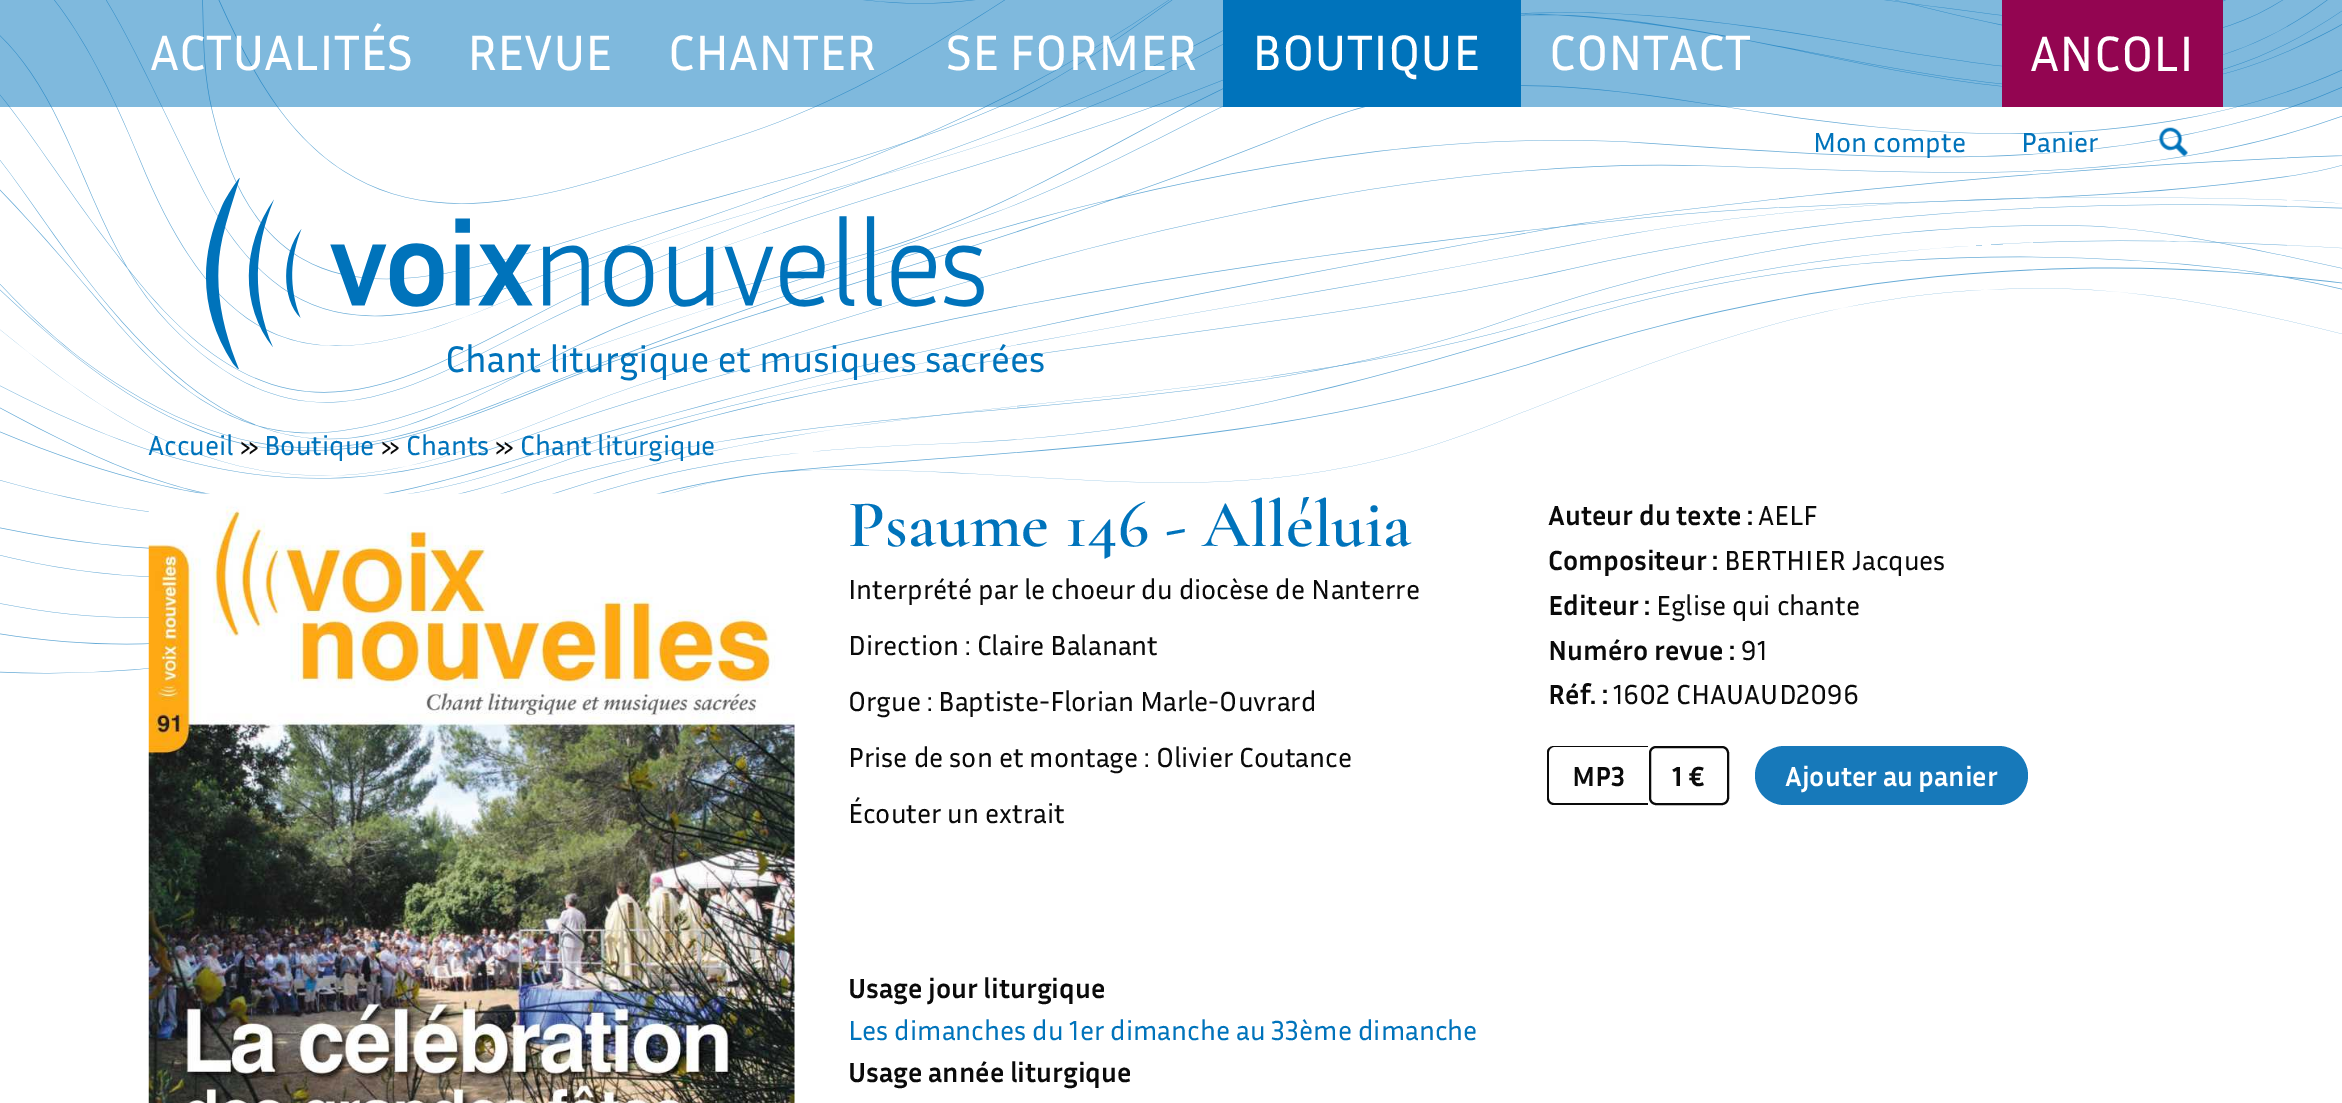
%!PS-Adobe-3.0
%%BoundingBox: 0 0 2342 1103
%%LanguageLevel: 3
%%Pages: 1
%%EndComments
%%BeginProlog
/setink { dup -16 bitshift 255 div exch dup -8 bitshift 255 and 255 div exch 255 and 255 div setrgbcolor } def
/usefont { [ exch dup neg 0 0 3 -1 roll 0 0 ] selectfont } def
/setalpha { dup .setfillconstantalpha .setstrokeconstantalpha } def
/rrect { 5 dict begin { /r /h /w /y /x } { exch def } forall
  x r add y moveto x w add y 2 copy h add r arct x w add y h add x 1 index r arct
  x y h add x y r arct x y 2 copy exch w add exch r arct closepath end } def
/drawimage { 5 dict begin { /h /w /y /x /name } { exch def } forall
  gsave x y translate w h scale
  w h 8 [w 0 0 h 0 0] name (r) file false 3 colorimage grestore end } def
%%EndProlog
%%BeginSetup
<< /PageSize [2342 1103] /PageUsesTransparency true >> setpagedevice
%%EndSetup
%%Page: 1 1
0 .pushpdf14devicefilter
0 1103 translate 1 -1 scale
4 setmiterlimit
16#FFFFFF setink
0 0 2342 1103 rectfill
(img1.raw) 0 0 2342 674 drawimage
0.5 setalpha
16#0073BB setink
0 0 2342 107 rectfill
/InriaSans-Regular 50.5 usefont
1 setalpha
16#FFFFFF setink
[
    [(ACTUALITÉS) 150 70]
    [(REVUE) 467 70]
    [(CHANTER) 668 70]
    [(SE FORMER) 946 70]
] { aload pop moveto show } forall
16#0073BB setink
1223 0 298 107 rectfill
16#FFFFFF setink
1252 70 moveto (BOUTIQUE) show
1549 70 moveto (CONTACT) show
16#930551 setink
2002 0 221 107 rectfill
16#FFFFFF setink
2030 71 moveto (ANCOLI) show
/InriaSans-Regular 28 usefont
16#0073BB setink
1813 152 moveto (Mon compte) show
2021 152 moveto (Panier) show
(img2.raw) 2159 127 29 29 drawimage
(img3.raw) 205 177 839 204 drawimage
148 455 moveto (Accueil) show
16#0A0A0A setink
240 455 moveto (») show
16#0073BB setink
264 455 moveto (Boutique) show
16#0A0A0A setink
381 455 moveto (») show
16#0073BB setink
406 455 moveto (Chants) show
16#0A0A0A setink
495 455 moveto (») show
16#0073BB setink
520 455 moveto (Chant liturgique) show
(img4.raw) 148 493 647 610 drawimage
/CormorantGaramond-SemiBold 67.25 usefont
848 546 moveto (Psaume 146 - Alléluia) show
/InriaSans-Regular 28 usefont
16#0A0A0A setink
[
    [(Interprété par le choeur du diocèse de Nanterre) 848 599]
    [(Direction : Claire Balanant) 848 655]
    [(Orgue : Baptiste-Florian Marle-Ouvrard) 848 711]
    [(Prise de son et montage : Olivier Coutance) 848 767]
    [(Écouter un extrait) 848 823]
] { aload pop moveto show } forall
/InriaSans-Bold 28 usefont
848 998 moveto (Usage jour liturgique) show
/InriaSans-Regular 28 usefont
16#0073BB setink
848 1040 moveto (Les dimanches du 1er dimanche au 33ème dimanche) show
/InriaSans-Bold 28 usefont
16#0A0A0A setink
848 1082 moveto (Usage année liturgique) show
1548 525 moveto (Auteur du texte :) show
/InriaSans-Regular 28 usefont
1758 525 moveto (AELF) show
/InriaSans-Bold 28 usefont
1548 570 moveto (Compositeur :) show
/InriaSans-Regular 28 usefont
1724 570 moveto (BERTHIER Jacques) show
/InriaSans-Bold 28 usefont
1548 615 moveto (Editeur :) show
/InriaSans-Regular 28 usefont
1656 615 moveto (Eglise qui chante) show
/InriaSans-Bold 28 usefont
1548 660 moveto (Numéro revue :) show
/InriaSans-Regular 28 usefont
1741 660 moveto (91) show
/InriaSans-Bold 28 usefont
1548 704 moveto (Réf. :) show
/InriaSans-Regular 28 usefont
1613 704 moveto (1602 CHAUAUD2096) show
1554 746 moveto 1648 746 lineto 1648 805 lineto 1554 805 lineto 1550 805 1547 802 1547 798 curveto 1547 752 lineto 1547 749 1550 746 1554 746 curveto closepath 1554 747 moveto 1648 747 lineto 1648 803 lineto 1554 803 lineto 1551 803 1549 801 1549 798 curveto 1549 752 lineto 1549 750 1551 747 1554 747 curveto closepath eofill
/InriaSans-Bold 28 usefont
1572 786 moveto (MP3) show
2 setlinewidth
1650 747 78 57 6 rrect stroke
1672 786 moveto (1 €) show
16#1779BA setink
1755 746 273 59 29.5 rrect fill
16#FFFFFF setink
1785 786 moveto (Ajouter au panier) show
.poppdf14devicefilter showpage
%%EOF
